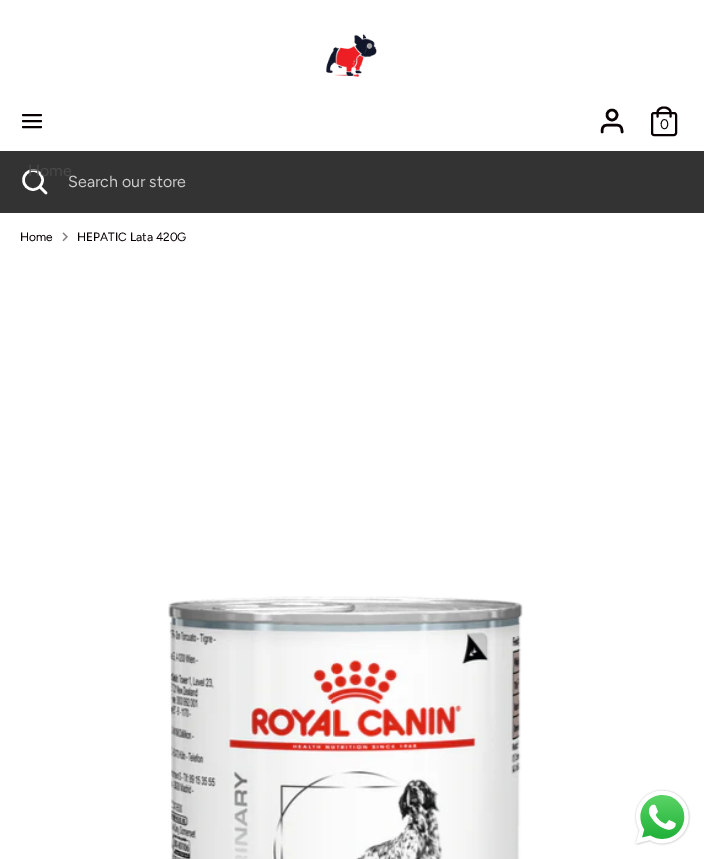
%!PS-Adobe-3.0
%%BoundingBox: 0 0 704 859
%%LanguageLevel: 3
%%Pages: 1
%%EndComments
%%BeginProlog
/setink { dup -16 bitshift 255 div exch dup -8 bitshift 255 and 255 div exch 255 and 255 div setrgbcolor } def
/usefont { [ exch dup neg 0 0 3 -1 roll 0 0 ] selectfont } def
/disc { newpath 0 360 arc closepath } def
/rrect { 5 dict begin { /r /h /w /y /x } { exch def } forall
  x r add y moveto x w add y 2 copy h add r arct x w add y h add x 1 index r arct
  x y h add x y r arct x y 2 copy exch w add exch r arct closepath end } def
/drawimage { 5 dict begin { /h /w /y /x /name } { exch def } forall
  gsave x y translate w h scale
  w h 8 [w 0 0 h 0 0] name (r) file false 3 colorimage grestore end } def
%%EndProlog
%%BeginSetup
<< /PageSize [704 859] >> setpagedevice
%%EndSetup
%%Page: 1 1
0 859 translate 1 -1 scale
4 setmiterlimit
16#FFFFFF setink
0 0 704 859 rectfill
(img1.raw) 326 34 51 43 drawimage
16#080000 setink
2 setlinewidth
1 setlinecap
23 121 moveto 41 121 lineto 23 115 moveto 41 115 lineto 23 127 moveto 41 127 lineto stroke
2.5 setlinewidth
622 132 moveto 622 124.5 619 125 612 125 curveto 605 125 602 124.5 602 132 curveto stroke
0 setlinecap
612 115 5 disc stroke
2 setlinewidth
652 113 24 22 2 rrect stroke
2.1 setlinewidth
1 setlinecap
657.5 116.5 moveto 657.5 112.5 lineto 657.5 109.5 660.5 107.5 664 107.5 curveto 667.5 107.5 670.5 109.5 670.5 112.5 curveto 670.5 116.5 lineto stroke
/Figtree-Regular 14 usefont
660 129 moveto (0) show
16#333333 setink
0 151 704 62 rectfill
16#FFFFFF setink
2.5 setlinewidth
0 setlinecap
33 180 9.5 disc stroke
/Figtree-Regular 16 usefont
16#4A4A4A setink
28 176 moveto (Home) show
16#FFFFFF setink
1 setlinecap
46 193 moveto 40 187 lineto stroke
16#CCCCCC setink
68 187 moveto (Search our store) show
/Figtree-Regular 12 usefont
16#080000 setink
20 241 moveto (Home) show
(img2.raw) 62 232 6 10 drawimage
77 241 moveto (HEPATIC Lata 420G) show
(img3.raw) 168 596 355 263 drawimage
(img4.raw) 634 789 57 57 drawimage
showpage
%%EOF
